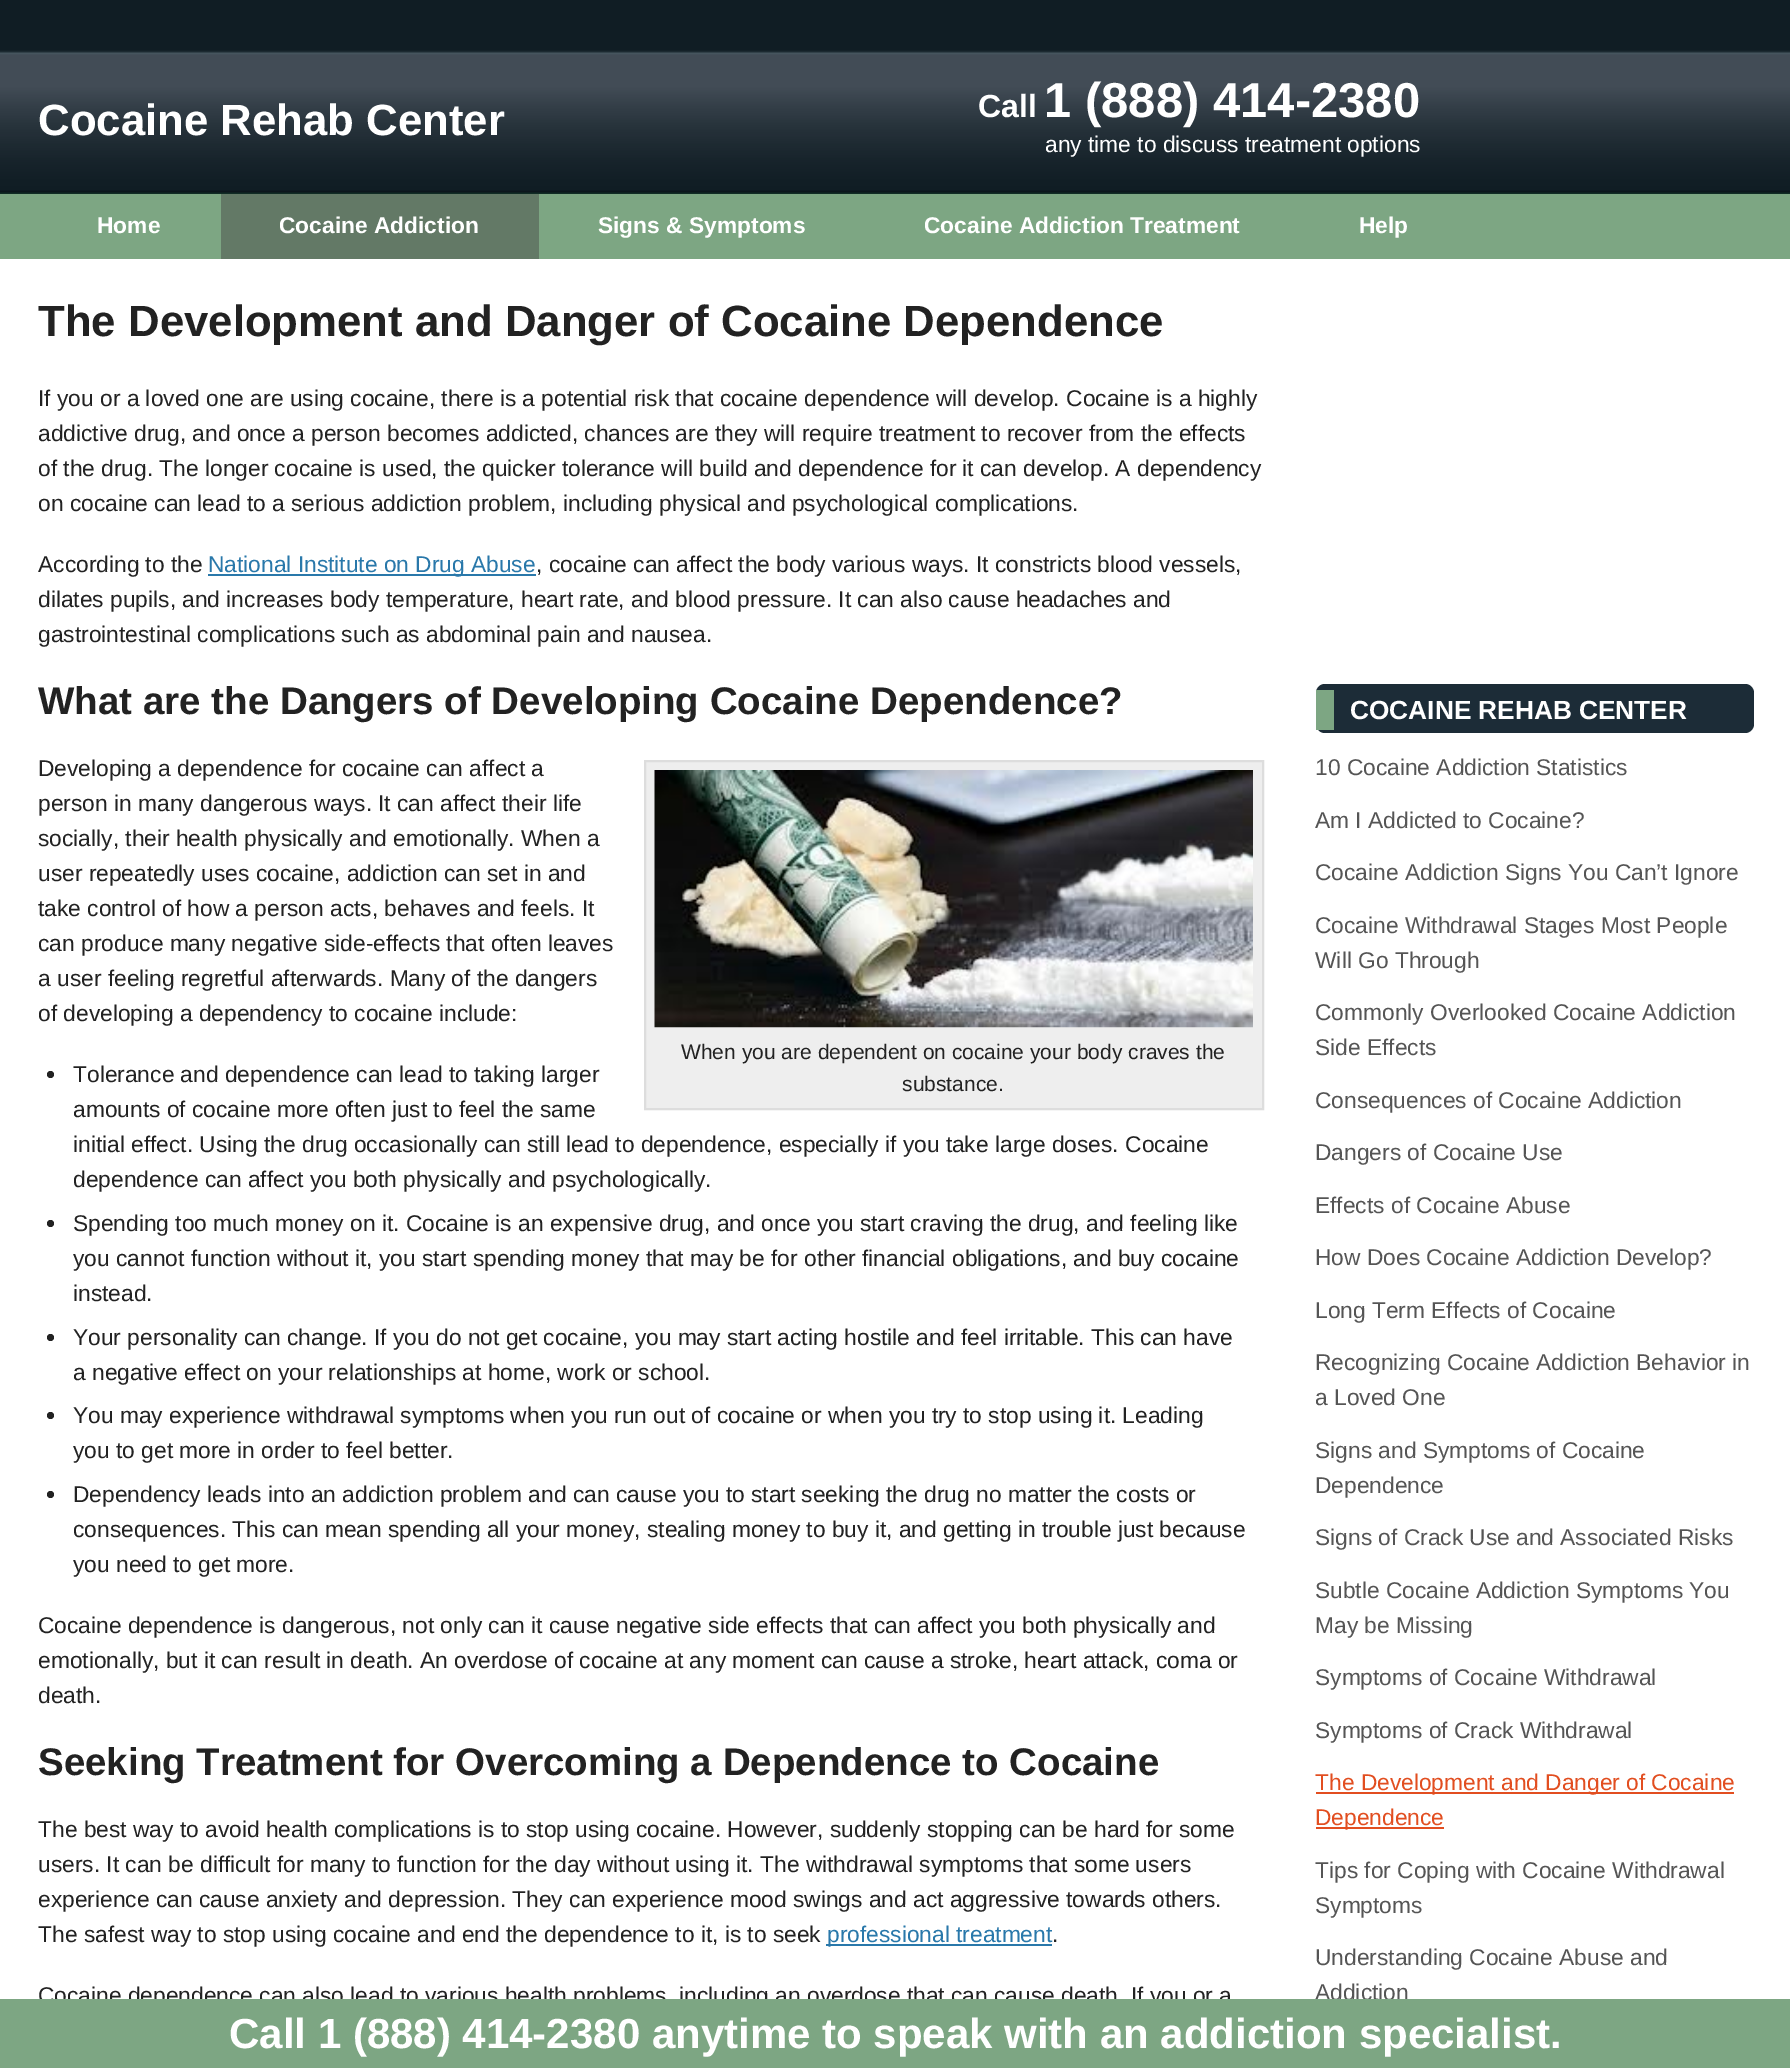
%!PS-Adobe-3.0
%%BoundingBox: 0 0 1790 2068
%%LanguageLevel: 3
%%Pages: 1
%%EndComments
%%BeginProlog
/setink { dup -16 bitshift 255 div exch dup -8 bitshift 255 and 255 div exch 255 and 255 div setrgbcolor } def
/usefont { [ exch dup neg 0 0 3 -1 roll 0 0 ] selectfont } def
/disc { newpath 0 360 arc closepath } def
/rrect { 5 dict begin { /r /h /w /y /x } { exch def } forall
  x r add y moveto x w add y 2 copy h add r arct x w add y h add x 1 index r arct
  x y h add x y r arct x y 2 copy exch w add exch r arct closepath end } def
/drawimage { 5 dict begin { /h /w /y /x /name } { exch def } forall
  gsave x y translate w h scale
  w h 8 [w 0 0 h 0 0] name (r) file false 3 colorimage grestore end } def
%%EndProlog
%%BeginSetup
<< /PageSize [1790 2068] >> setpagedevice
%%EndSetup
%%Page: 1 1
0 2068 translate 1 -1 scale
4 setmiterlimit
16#FFFFFF setink
0 0 1790 2068 rectfill
(img1.raw) 0 0 1790 194 drawimage
/LiberationSans-Bold 43.75 usefont
38 135 moveto (Cocaine Rehab Center) show
/LiberationSans-Bold 32 usefont
978 117 moveto (Call) show
/LiberationSans-Bold 49 usefont
1044 117 moveto (1 \(888\) 414-2380) show
/LiberationSans-Regular 22.75 usefont
1045 152 moveto (any time to discuss treatment options) show
16#7DA683 setink
0 194 1790 65 rectfill
/LiberationSans-Bold 22.75 usefont
16#FFFFFF setink
97 233 moveto (Home) show
16#637966 setink
221 194 318 65 rectfill
16#FFFFFF setink
[
    [(Cocaine Addiction) 279 233]
    [(Signs & Symptoms) 598 233]
    [(Cocaine Addiction Treatment) 924 233]
    [(Help) 1359 233]
] { aload pop moveto show } forall
/LiberationSans-Bold 43.75 usefont
16#222222 setink
38 336 moveto (The Development and Danger of Cocaine Dependence) show
/LiberationSans-Regular 22.75 usefont
[
    [(If you or a loved one are using cocaine, there is a potential risk that cocaine dependence will develop. Cocaine is a highly) 38 406]
    [(addictive drug, and once a person becomes addicted, chances are they will require treatment to recover from the effects) 38 441]
    [(of the drug. The longer cocaine is used, the quicker tolerance will build and dependence for it can develop. A dependency) 38 476]
    [(on cocaine can lead to a serious addiction problem, including physical and psychological complications.) 38 511]
    [(According to the) 38 572]
] { aload pop moveto show } forall
16#2978AA setink
208 574 328 2 rectfill
208 572 moveto (National Institute on Drug Abuse) show
16#222222 setink
[
    [(, cocaine can affect the body various ways. It constricts blood vessels,) 536 572]
    [(dilates pupils, and increases body temperature, heart rate, and blood pressure. It can also cause headaches and) 38 607]
    [(gastrointestinal complications such as abdominal pain and nausea.) 38 642]
] { aload pop moveto show } forall
/LiberationSans-Bold 38.5 usefont
38 714 moveto (What are the Dangers of Developing Cocaine Dependence?) show
/LiberationSans-Regular 22.75 usefont
[
    [(Developing a dependence for cocaine can affect a) 38 776]
    [(person in many dangerous ways. It can affect their life) 38 811]
    [(socially, their health physically and emotionally. When a) 38 846]
    [(user repeatedly uses cocaine, addiction can set in and) 38 881]
    [(take control of how a person acts, behaves and feels. It) 38 916]
    [(can produce many negative side-effects that often leaves) 38 951]
    [(a user feeling regretful afterwards. Many of the dangers) 38 986]
    [(of developing a dependency to cocaine include:) 38 1021]
] { aload pop moveto show } forall
16#EEEEEE setink
645 761 moveto 1263 761 lineto 1263 1109 lineto 645 1109 lineto closepath gsave fill grestore
16#DDDDDD setink
2 setlinewidth
stroke
(img2.raw) 654 770 599 258 drawimage
/LiberationSans-Regular 21 usefont
16#222222 setink
681 1059 moveto (When you are dependent on cocaine your body craves the) show
902 1091 moveto (substance.) show
50.5 1074.5 3.5 disc fill
/LiberationSans-Regular 22.75 usefont
[
    [(Tolerance and dependence can lead to taking larger) 73 1082]
    [(amounts of cocaine more often just to feel the same) 73 1117]
    [(initial effect. Using the drug occasionally can still lead to dependence, especially if you take large doses. Cocaine) 73 1152]
    [(dependence can affect you both physically and psychologically.) 73 1187]
] { aload pop moveto show } forall
50.5 1223.5 3.5 disc fill
[
    [(Spending too much money on it. Cocaine is an expensive drug, and once you start craving the drug, and feeling like) 73 1231]
    [(you cannot function without it, you start spending money that may be for other financial obligations, and buy cocaine) 73 1266]
    [(instead.) 73 1301]
] { aload pop moveto show } forall
50.5 1337.5 3.5 disc fill
73 1345 moveto (Your personality can change. If you do not get cocaine, you may start acting hostile and feel irritable. This can have) show
73 1380 moveto (a negative effect on your relationships at home, work or school.) show
50.5 1415.5 3.5 disc fill
73 1423 moveto (You may experience withdrawal symptoms when you run out of cocaine or when you try to stop using it. Leading) show
73 1458 moveto (you to get more in order to feel better.) show
50.5 1494.5 3.5 disc fill
[
    [(Dependency leads into an addiction problem and can cause you to start seeking the drug no matter the costs or) 73 1502]
    [(consequences. This can mean spending all your money, stealing money to buy it, and getting in trouble just because) 73 1537]
    [(you need to get more.) 73 1572]
    [(Cocaine dependence is dangerous, not only can it cause negative side effects that can affect you both physically and) 38 1633]
    [(emotionally, but it can result in death. An overdose of cocaine at any moment can cause a stroke, heart attack, coma or) 38 1668]
    [(death.) 38 1703]
] { aload pop moveto show } forall
/LiberationSans-Bold 38.5 usefont
38 1775 moveto (Seeking Treatment for Overcoming a Dependence to Cocaine) show
/LiberationSans-Regular 22.75 usefont
[
    [(The best way to avoid health complications is to stop using cocaine. However, suddenly stopping can be hard for some) 38 1837]
    [(users. It can be difficult for many to function for the day without using it. The withdrawal symptoms that some users) 38 1872]
    [(experience can cause anxiety and depression. They can experience mood swings and act aggressive towards others.) 38 1907]
    [(The safest way to stop using cocaine and end the dependence to it, is to seek) 38 1942]
] { aload pop moveto show } forall
16#2978AA setink
826 1944 226 2 rectfill
827 1942 moveto (professional treatment) show
16#222222 setink
1052 1942 moveto (.) show
38 2003 moveto (Cocaine dependence can also lead to various health problems, including an overdose that can cause death. If you or a) show
16#1C2C37 setink
1316 684 438 49 9 rrect fill
16#7DA683 setink
1316 690 18 40 rectfill
/LiberationSans-Bold 26.25 usefont
16#FFFFFF setink
1350 719 moveto (COCAINE REHAB CENTER) show
/LiberationSans-Regular 22.75 usefont
16#555555 setink
[
    [(10 Cocaine Addiction Statistics) 1315 775]
    [(Am I Addicted to Cocaine?) 1315 828]
    [(Cocaine Addiction Signs You Can’t Ignore) 1315 880]
    [(Cocaine Withdrawal Stages Most People) 1315 933]
    [(Will Go Through) 1315 968]
    [(Commonly Overlooked Cocaine Addiction) 1315 1020]
    [(Side Effects) 1315 1055]
    [(Consequences of Cocaine Addiction) 1315 1108]
    [(Dangers of Cocaine Use) 1315 1160]
    [(Effects of Cocaine Abuse) 1315 1213]
    [(How Does Cocaine Addiction Develop?) 1315 1265]
    [(Long Term Effects of Cocaine) 1315 1318]
    [(Recognizing Cocaine Addiction Behavior in) 1315 1370]
    [(a Loved One) 1315 1405]
    [(Signs and Symptoms of Cocaine) 1315 1458]
    [(Dependence) 1315 1493]
    [(Signs of Crack Use and Associated Risks) 1315 1545]
    [(Subtle Cocaine Addiction Symptoms You) 1315 1598]
    [(May be Missing) 1315 1633]
    [(Symptoms of Cocaine Withdrawal) 1315 1685]
    [(Symptoms of Crack Withdrawal) 1315 1738]
] { aload pop moveto show } forall
16#E24E20 setink
1316 1792 418 2 rectfill
1315 1790 moveto (The Development and Danger of Cocaine) show
1316 1827 128 2 rectfill
1315 1825 moveto (Dependence) show
16#555555 setink
[
    [(Tips for Coping with Cocaine Withdrawal) 1315 1878]
    [(Symptoms) 1315 1913]
    [(Understanding Cocaine Abuse and) 1315 1965]
    [(Addiction) 1315 2000]
] { aload pop moveto show } forall
16#7DA683 setink
0 1999 1790 69 rectfill
/LiberationSans-Bold 42 usefont
16#FFFFFF setink
229 2048 moveto (Call 1 \(888\) 414-2380 anytime to speak with an addiction specialist.) show
showpage
%%EOF
